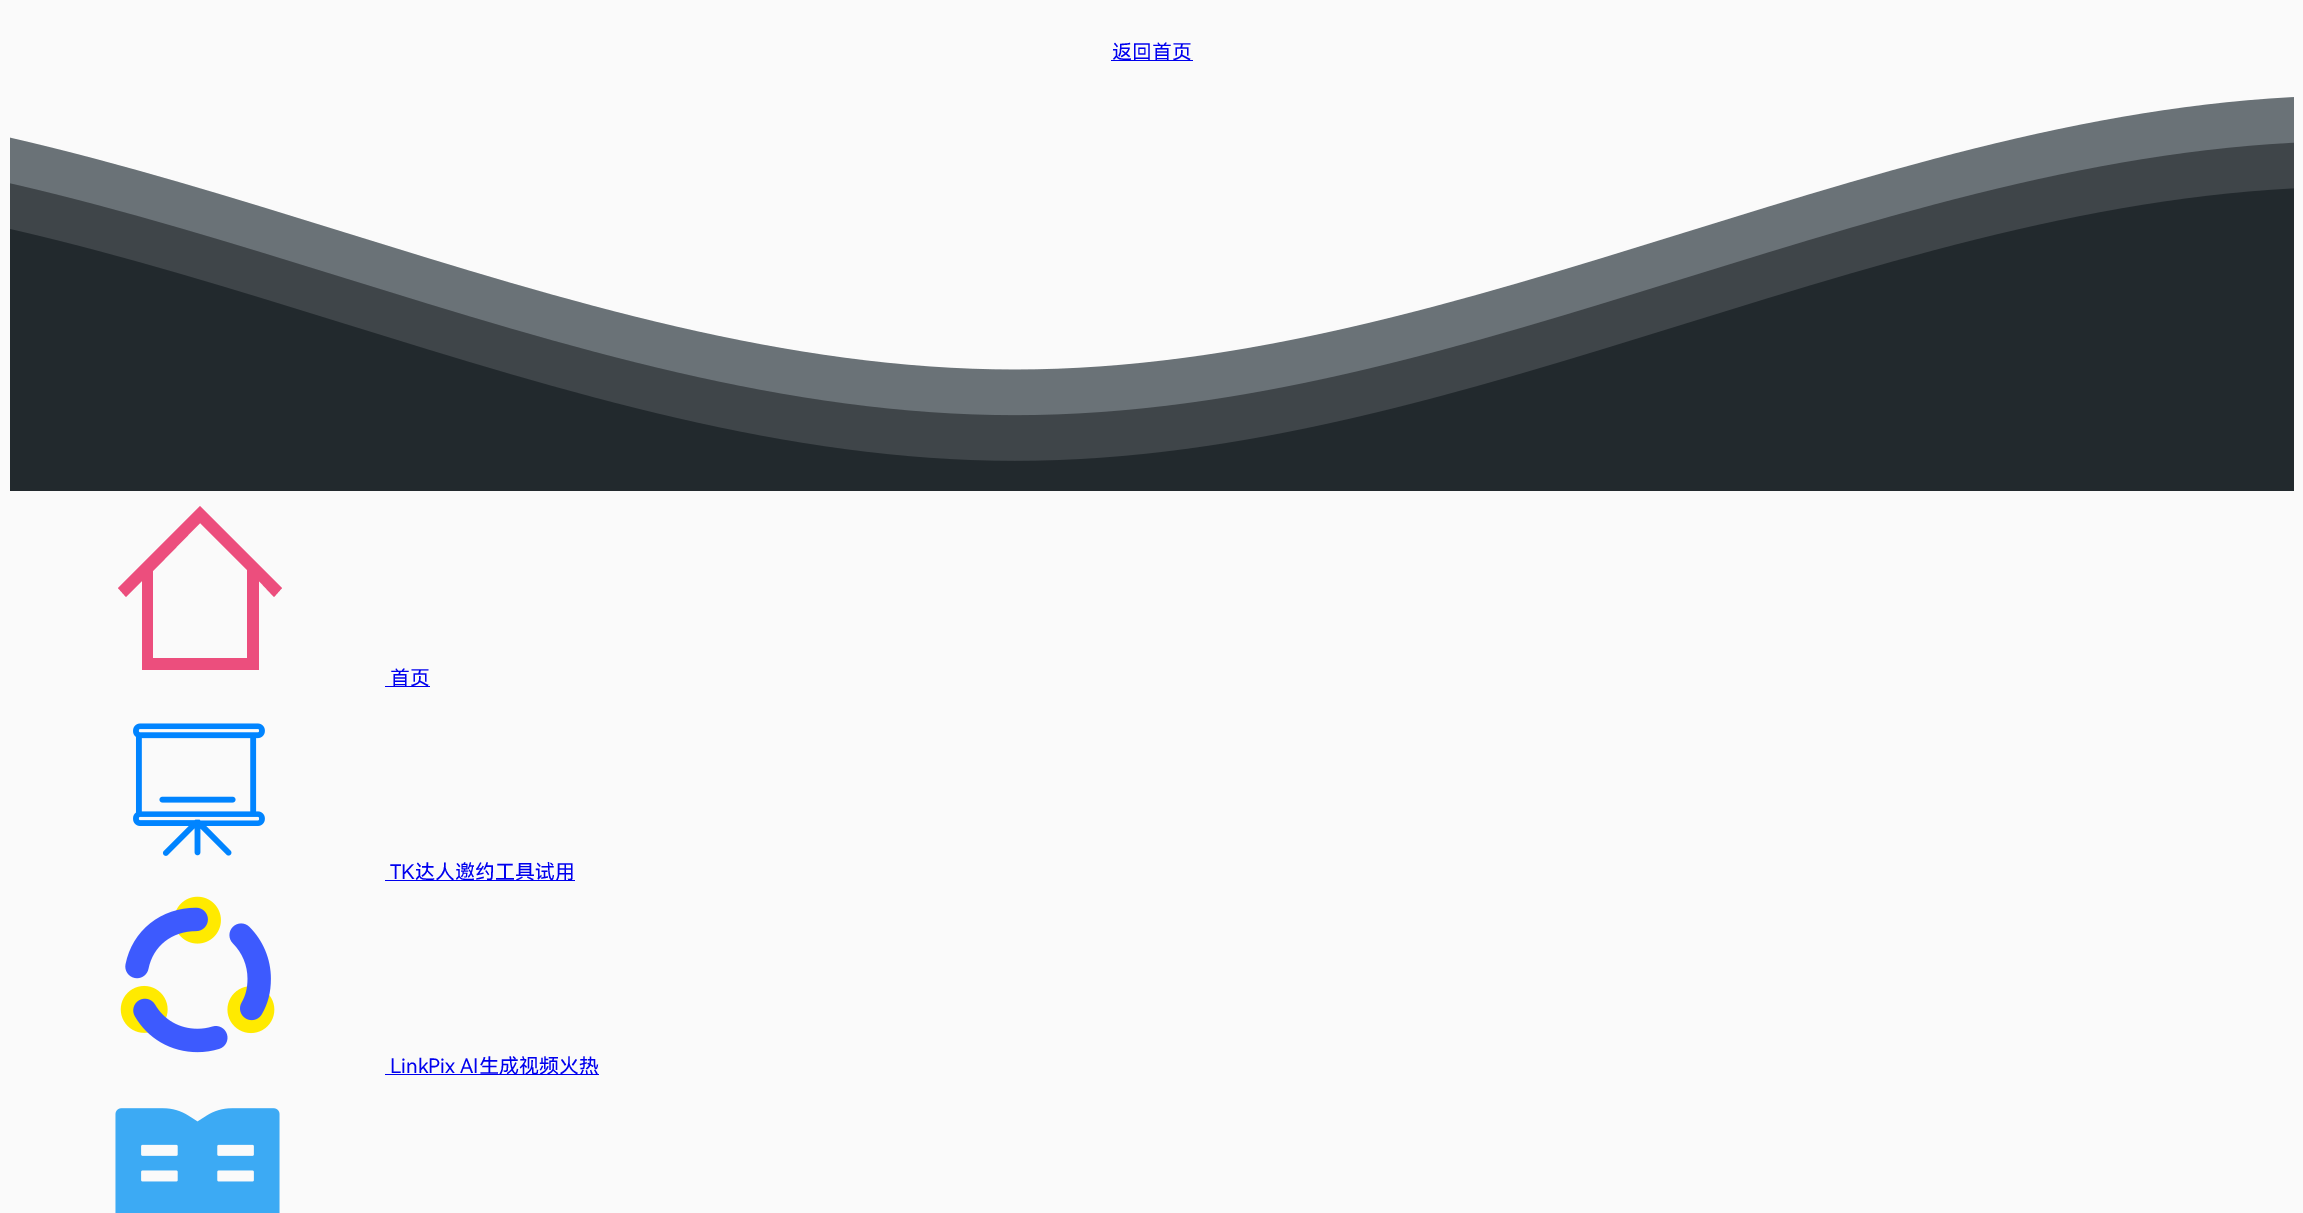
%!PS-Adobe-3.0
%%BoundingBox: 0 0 2303 1213
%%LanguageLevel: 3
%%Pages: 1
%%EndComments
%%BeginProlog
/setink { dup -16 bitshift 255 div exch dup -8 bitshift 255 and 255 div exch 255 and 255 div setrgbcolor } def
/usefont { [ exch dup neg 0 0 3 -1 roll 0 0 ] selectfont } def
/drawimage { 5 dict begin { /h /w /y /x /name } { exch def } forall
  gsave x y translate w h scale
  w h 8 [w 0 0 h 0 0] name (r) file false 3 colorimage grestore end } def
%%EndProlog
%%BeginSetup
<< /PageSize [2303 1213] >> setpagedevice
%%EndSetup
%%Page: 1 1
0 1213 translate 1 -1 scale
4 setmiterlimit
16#FAFAFA setink
0 0 2303 1213 rectfill
16#0000EE setink
1111 60 82 1 rectfill
/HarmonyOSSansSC-Regular 20 usefont
1112 59 moveto (返回首页) show
(img1.raw) 10 97 2284 394 drawimage
385 686 45 1 rectfill
390 685 moveto (首页) show
16#EC4E7D setink
282 588 moveto 200 506 lineto 118 588 lineto 126 597 lineto 142 581 lineto 142 670 lineto 259 670 lineto 259 581 lineto 274 597 lineto closepath 247 658 moveto 153 658 lineto 153 571 lineto 200 523 lineto 247 570 lineto closepath fill
(img2.raw) 133 723 132 133 drawimage
16#0000EE setink
385 880 190 1 rectfill
390 879 moveto (TK达人邀约工具试用) show
(img3.raw) 120 896 155 157 drawimage
390 1073 moveto (LinkPix) show
385 1074 214 1 rectfill
460 1073 moveto (AI生成视频火热) show
(img4.raw) 115 1108 165 105 drawimage
showpage
%%EOF
